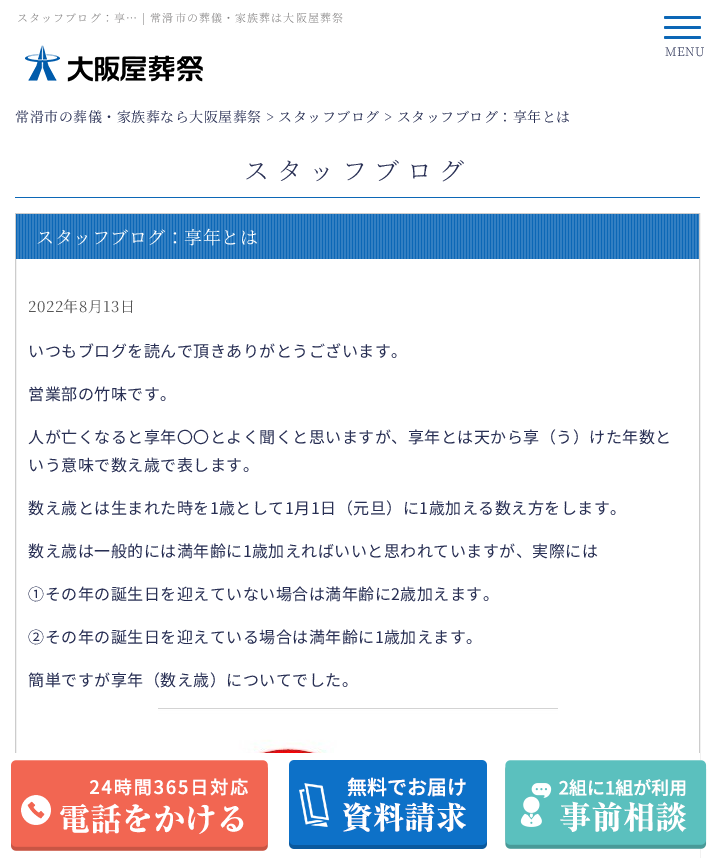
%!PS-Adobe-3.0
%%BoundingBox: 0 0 715 858
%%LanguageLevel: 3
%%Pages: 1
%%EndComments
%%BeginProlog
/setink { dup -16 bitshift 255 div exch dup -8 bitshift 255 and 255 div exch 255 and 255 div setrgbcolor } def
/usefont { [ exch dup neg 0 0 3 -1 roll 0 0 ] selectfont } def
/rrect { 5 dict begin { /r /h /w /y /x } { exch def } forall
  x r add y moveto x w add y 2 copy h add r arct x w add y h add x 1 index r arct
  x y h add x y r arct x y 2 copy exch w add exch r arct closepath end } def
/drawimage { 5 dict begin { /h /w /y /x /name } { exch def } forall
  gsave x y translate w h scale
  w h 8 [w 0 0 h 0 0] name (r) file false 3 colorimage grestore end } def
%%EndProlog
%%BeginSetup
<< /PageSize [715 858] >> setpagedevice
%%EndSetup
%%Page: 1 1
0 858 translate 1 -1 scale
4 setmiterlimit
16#FFFFFF setink
0 0 715 858 rectfill
/NotoSerifJP-Light 11 usefont
16#7F7E7E setink
17 22 moveto 1.1 0 (スタッフブログ：享… | 常滑市の葬儀・家族葬は大阪屋葬祭) ashow
(img1.raw) 25 45 178 37 drawimage
16#0C67B6 setink
664 16 37 3 1.5 rrect fill
664 26 37 3 1.5 rrect fill
664 36 37 3 1.5 rrect fill
/NotoSerifJP-ExtraLight 12 usefont
16#272E53 setink
665 56 moveto 0.5 0 (MENU) ashow
/NotoSerifJP-Regular 14 usefont
15 122 moveto 0.5 0 (常滑市の葬儀・家族葬なら大阪屋葬祭 > スタッフブログ > スタッフブログ：享年とは) ashow
/NotoSerifJP-Light 25 usefont
244 180 moveto 7.5 0 (スタッフブログ) ashow
16#0C67B6 setink
15 197 685 1 rectfill
16#CCCCCC setink
15.5 213.5 684 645 rectstroke
16#0C67B6 setink
16 214 683 45 rectfill
(img2.raw) 17 214 682 45 drawimage
/NotoSerifJP-Regular 18 usefont
16#FFFFFF setink
36 244 moveto 0.5 0 (スタッフブログ：享年とは) ashow
/NotoSerifJP-Regular 15 usefont
16#555555 setink
28 312 moveto 0.5 0 (2022年8月13日) ashow
/NotoSansJP-Regular 16 usefont
16#272E53 setink
28 357 moveto 0.5 0 (いつもブログを読んで頂きありがとうございます。) ashow
28 400 moveto 0.5 0 (営業部の竹味です。) ashow
28 443 moveto 0.5 0 (人が亡くなると享年〇〇とよく聞くと思いますが、享年とは天から享（う）けた年数と) ashow
28 471 moveto 0.5 0 (いう意味で数え歳で表します。) ashow
28 514 moveto 0.5 0 (数え歳とは生まれた時を1歳として1月1日（元旦）に1歳加える数え方をします。) ashow
28 557 moveto 0.5 0 (数え歳は一般的には満年齢に1歳加えればいいと思われていますが、実際には) ashow
28 600 moveto 0.5 0 (①その年の誕生日を迎えていない場合は満年齢に2歳加えます。) ashow
28 643 moveto 0.5 0 (②その年の誕生日を迎えている場合は満年齢に1歳加えます。) ashow
28 686 moveto 0.5 0 (簡単ですが享年（数え歳）についてでした。) ashow
(img3.raw) 158 708 400 45 drawimage
16#FFFFFF setink
15 753 685 105 rectfill
(img4.raw) 11 760 257 91 drawimage
(img5.raw) 289 760 198 89 drawimage
(img6.raw) 505 760 202 89 drawimage
showpage
%%EOF
